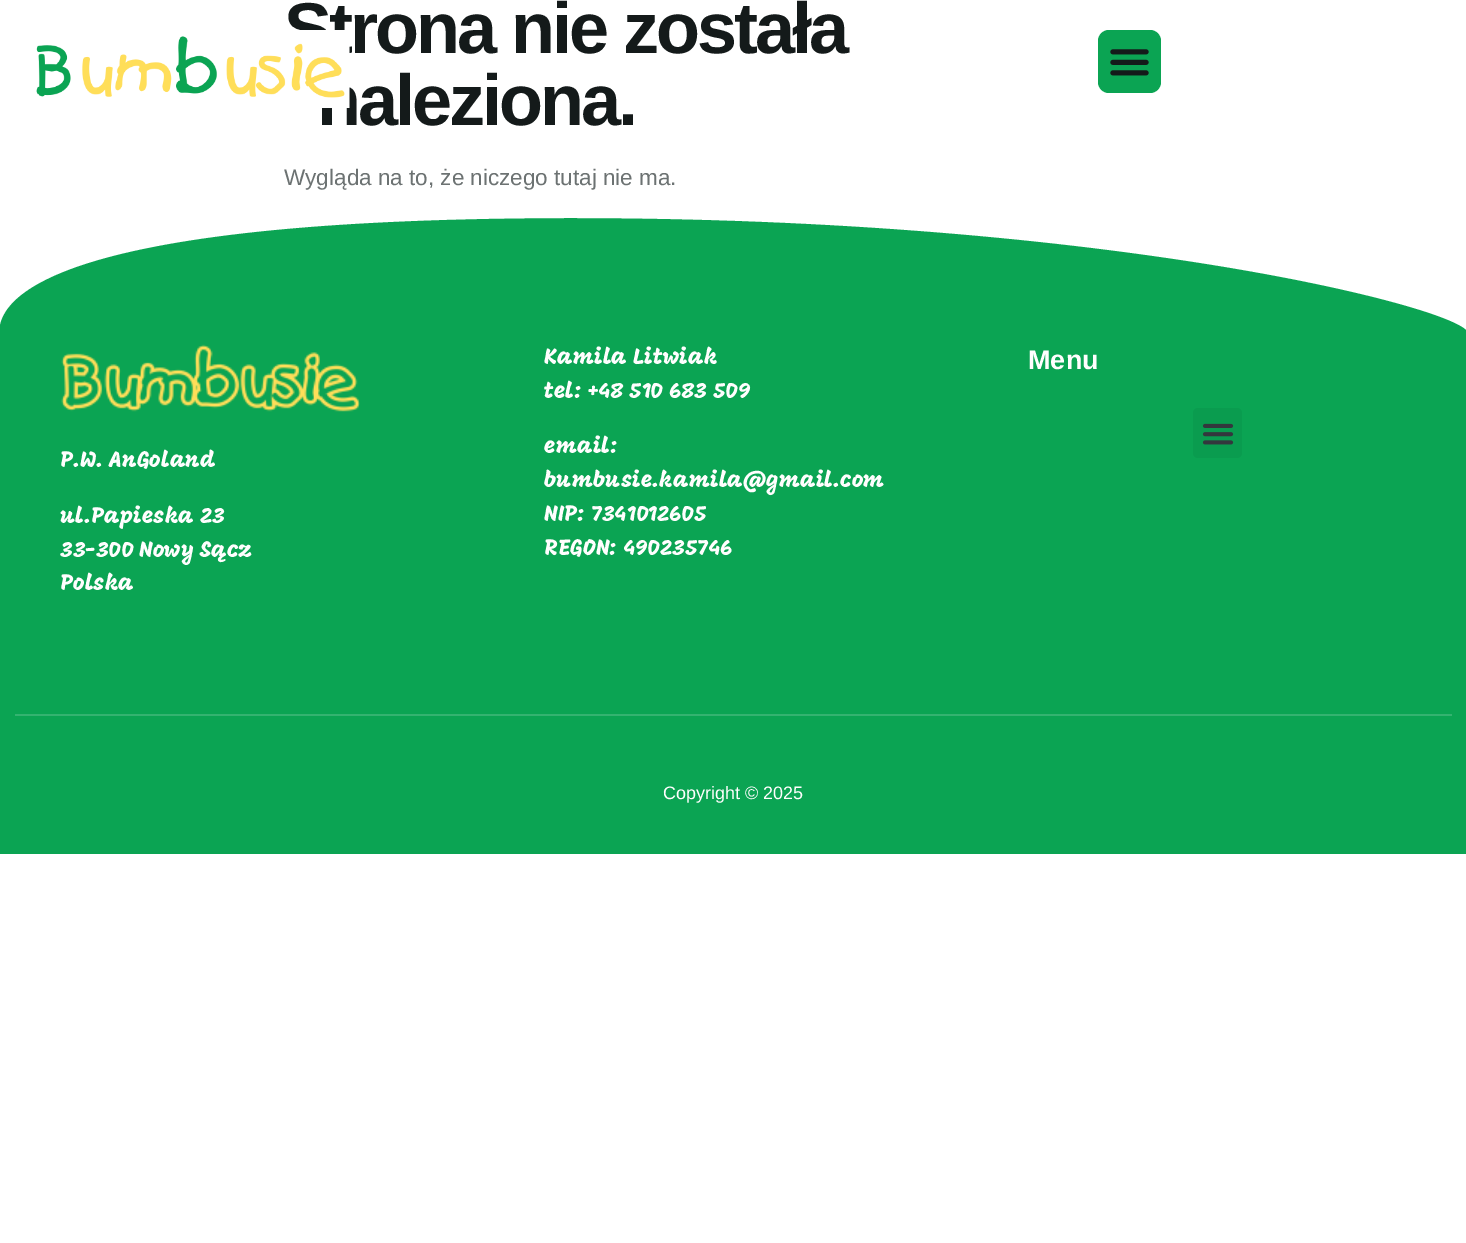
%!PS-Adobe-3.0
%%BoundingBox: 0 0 1466 1243
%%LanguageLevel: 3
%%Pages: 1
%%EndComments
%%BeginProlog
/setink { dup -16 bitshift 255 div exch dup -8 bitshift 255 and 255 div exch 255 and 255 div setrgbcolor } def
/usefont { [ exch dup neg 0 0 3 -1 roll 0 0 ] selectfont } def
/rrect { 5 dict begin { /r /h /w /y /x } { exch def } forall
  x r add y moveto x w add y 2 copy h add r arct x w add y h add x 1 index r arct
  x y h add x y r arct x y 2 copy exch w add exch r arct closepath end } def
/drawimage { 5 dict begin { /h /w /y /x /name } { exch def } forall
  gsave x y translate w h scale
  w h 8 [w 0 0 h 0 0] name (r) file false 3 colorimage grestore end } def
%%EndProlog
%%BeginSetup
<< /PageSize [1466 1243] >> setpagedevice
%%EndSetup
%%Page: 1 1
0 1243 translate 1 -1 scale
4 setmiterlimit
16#FFFFFF setink
0 0 1466 1243 rectfill
/LiberationSans-Bold 72 usefont
16#141A1A setink
284 53 moveto -3 0 (Strona nie została) ashow
317 125 moveto -3 0 (naleziona.) ashow
/LiberationSans-Regular 22.5 usefont
16#6C7272 setink
284 185 moveto (Wygląda na to, że niczego tutaj nie ma.) show
(img1.raw) 36 30 314 78 drawimage
16#0BA453 setink
1098 30 63 63 11 rrect fill
(img2.raw) 1110 49 39 27 drawimage
0 218 1466 636 rectfill
gsave
0 215 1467 118 rectclip
16#FFFFFF setink
564 218 moveto 1115 217 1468 310 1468 333 curveto 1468 214 lineto -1 214 lineto -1 333 lineto -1 310 14 219 564 218 curveto closepath fill
grestore
16#34B370 setink
15 714 1437 2 rectfill
/Mogra-Regular 22.5 usefont
16#FFFEFE setink
[
    [(Kamila Litwiak) 544 364]
    [(tel: +48 510 683 509) 544 398]
    [(email:) 544 453]
    [(bumbusie.kamila@gmail.com) 544 487]
    [(NIP: 7341012605) 544 521]
    [(REGON: 490235746) 544 555]
] { aload pop moveto show } forall
/LiberationSans-Bold 27 usefont
1028 369 moveto (Menu) show
16#0A9C4F setink
1193 408 49 50 5 rrect fill
(img3.raw) 1202 423 32 22 drawimage
(img4.raw) 61 344 299 68 drawimage
/Mogra-Regular 22.5 usefont
16#FFFEFE setink
[
    [(P.W. AnGoland) 60 467]
    [(ul.Papieska 23) 60 523]
    [(33-300 Nowy Sącz) 60 557]
    [(Polska) 60 590]
] { aload pop moveto show } forall
/LiberationSans-Regular 18 usefont
663 799 moveto (Copyright © 2025) show
showpage
%%EOF
